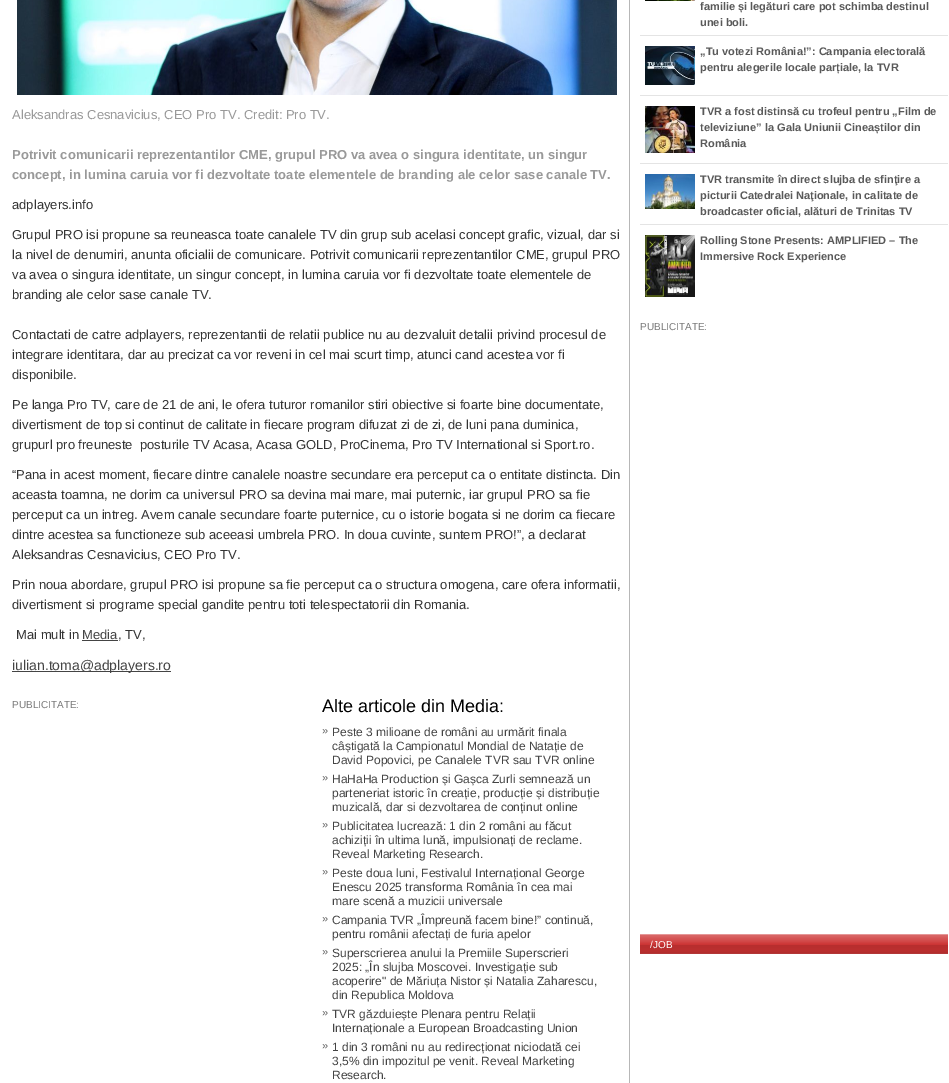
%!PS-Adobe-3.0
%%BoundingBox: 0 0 949 1083
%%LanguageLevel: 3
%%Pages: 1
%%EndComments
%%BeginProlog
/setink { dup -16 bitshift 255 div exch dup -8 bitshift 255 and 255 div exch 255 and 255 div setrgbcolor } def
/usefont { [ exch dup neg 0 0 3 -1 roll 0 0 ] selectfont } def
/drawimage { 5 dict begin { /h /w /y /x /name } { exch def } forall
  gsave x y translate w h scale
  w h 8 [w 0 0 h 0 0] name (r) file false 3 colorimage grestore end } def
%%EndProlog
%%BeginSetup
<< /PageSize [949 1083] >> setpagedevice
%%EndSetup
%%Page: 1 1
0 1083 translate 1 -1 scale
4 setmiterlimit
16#FFFFFF setink
0 0 949 1083 rectfill
16#B7B7B7 setink
629 0 1 1083 rectfill
(img1.raw) 17 0 600 95 drawimage
/LiberationSans-Regular 13 usefont
16#999999 setink
12 119 moveto (Aleksandras Cesnavicius, CEO Pro TV. Credit: Pro TV.) show
/LiberationSans-Bold 13 usefont
12 159 moveto (Potrivit comunicarii reprezentantilor CME, grupul PRO va avea o singura identitate, un singur) show
12 179 moveto (concept, in lumina caruia vor fi dezvoltate toate elementele de branding ale celor sase canale TV.) show
/LiberationSans-Regular 13 usefont
16#333333 setink
[
    [(adplayers.info) 12 209]
    [(Grupul PRO isi propune sa reuneasca toate canalele TV din grup sub acelasi concept grafic, vizual, dar si) 12 239]
    [(la nivel de denumiri, anunta oficialii de comunicare. Potrivit comunicarii reprezentantilor CME, grupul PRO) 12 259]
    [(va avea o singura identitate, un singur concept, in lumina caruia vor fi dezvoltate toate elementele de) 12 279]
    [(branding ale celor sase canale TV.) 12 299]
    [(Contactati de catre adplayers, reprezentantii de relatii publice nu au dezvaluit detalii privind procesul de) 12 339]
    [(integrare identitara, dar au precizat ca vor reveni in cel mai scurt timp, atunci cand acestea vor fi) 12 359]
    [(disponibile.) 12 379]
    [(Pe langa Pro TV, care de 21 de ani, le ofera tuturor romanilor stiri obiective si foarte bine documentate,) 12 409]
    [(divertisment de top si continut de calitate in fiecare program difuzat zi de zi, de luni pana duminica,) 12 429]
    [(grupurl pro freuneste  posturile TV Acasa, Acasa GOLD, ProCinema, Pro TV International si Sport.ro.) 12 449]
    [(“Pana in acest moment, fiecare dintre canalele noastre secundare era perceput ca o entitate distincta. Din) 12 479]
    [(aceasta toamna, ne dorim ca universul PRO sa devina mai mare, mai puternic, iar grupul PRO sa fie) 12 499]
    [(perceput ca un intreg. Avem canale secundare foarte puternice, cu o istorie bogata si ne dorim ca fiecare) 12 519]
    [(dintre acestea sa functioneze sub aceeasi umbrela PRO. In doua cuvinte, suntem PRO!”, a declarat) 12 539]
    [(Aleksandras Cesnavicius, CEO Pro TV.) 12 559]
    [(Prin noua abordare, grupul PRO isi propune sa fie perceput ca o structura omogena, care ofera informatii,) 12 589]
    [(divertisment si programe special gandite pentru toti telespectatorii din Romania.) 12 609]
    [(Mai mult in) 16 639]
] { aload pop moveto show } forall
16#444444 setink
82 639 moveto (Media) show
16#333333 setink
118 639 moveto (, TV,) show
16#444444 setink
82 640 36 1 rectfill
12 671 159 1 rectfill
/LiberationSans-Regular 14 usefont
12 670 moveto (iulian.toma@adplayers.ro) show
/LiberationSans-Regular 10 usefont
16#7B7B7B setink
12 708 moveto (PUBLICITATE:) show
/LiberationSans-Regular 18 usefont
16#000000 setink
322 712 moveto (Alte articole din Media:) show
/LiberationSans-Regular 11 usefont
16#6A6A6A setink
322 734 moveto (») show
/LiberationSans-Regular 12 usefont
16#444444 setink
[
    [(Peste 3 milioane de români au urmărit finala) 332 736]
    [(câștigată la Campionatul Mondial de Natație de) 332 750]
    [(David Popovici, pe Canalele TVR sau TVR online) 332 764]
] { aload pop moveto show } forall
/LiberationSans-Regular 11 usefont
16#6A6A6A setink
322 781 moveto (») show
/LiberationSans-Regular 12 usefont
16#444444 setink
[
    [(HaHaHa Production și Gașca Zurli semnează un) 332 783]
    [(parteneriat istoric în creație, producție și distribuție) 332 797]
    [(muzicală, dar si dezvoltarea de conținut online) 332 811]
] { aload pop moveto show } forall
/LiberationSans-Regular 11 usefont
16#6A6A6A setink
322 828 moveto (») show
/LiberationSans-Regular 12 usefont
16#444444 setink
[
    [(Publicitatea lucrează: 1 din 2 români au făcut) 332 830]
    [(achiziții în ultima lună, impulsionați de reclame.) 332 844]
    [(Reveal Marketing Research.) 332 858]
] { aload pop moveto show } forall
/LiberationSans-Regular 11 usefont
16#6A6A6A setink
322 875 moveto (») show
/LiberationSans-Regular 12 usefont
16#444444 setink
[
    [(Peste doua luni, Festivalul Internațional George) 332 877]
    [(Enescu 2025 transforma România în cea mai) 332 891]
    [(mare scenă a muzicii universale) 332 905]
] { aload pop moveto show } forall
/LiberationSans-Regular 11 usefont
16#6A6A6A setink
322 922 moveto (») show
/LiberationSans-Regular 12 usefont
16#444444 setink
332 924 moveto (Campania TVR „Împreună facem bine!” continuă,) show
332 938 moveto (pentru românii afectați de furia apelor) show
/LiberationSans-Regular 11 usefont
16#6A6A6A setink
322 955 moveto (») show
/LiberationSans-Regular 12 usefont
16#444444 setink
[
    [(Superscrierea anului la Premiile Superscrieri) 332 957]
    [(2025: „În slujba Moscovei. Investigație sub) 332 971]
    [(acoperire" de Măriuța Nistor și Natalia Zaharescu,) 332 985]
    [(din Republica Moldova) 332 999]
] { aload pop moveto show } forall
/LiberationSans-Regular 11 usefont
16#6A6A6A setink
322 1016 moveto (») show
/LiberationSans-Regular 12 usefont
16#444444 setink
332 1018 moveto (TVR găzduiește Plenara pentru Relații) show
332 1032 moveto (Internaționale a European Broadcasting Union) show
/LiberationSans-Regular 11 usefont
16#6A6A6A setink
322 1049 moveto (») show
/LiberationSans-Regular 12 usefont
16#444444 setink
[
    [(1 din 3 români nu au redirecționat niciodată cei) 332 1051]
    [(3,5% din impozitul pe venit. Reveal Marketing) 332 1065]
    [(Research.) 332 1079]
] { aload pop moveto show } forall
16#E4E4E4 setink
640 35 308 1 rectfill
(img2.raw) 645 0 50 1 drawimage
/LiberationSans-Bold 11 usefont
16#595959 setink
700 10 moveto (familie și legături care pot schimba destinul) show
700 26 moveto (unei boli.) show
16#E4E4E4 setink
640 95 308 1 rectfill
(img3.raw) 645 46 50 39 drawimage
16#595959 setink
700 55 moveto („Tu votezi România!”: Campania electorală) show
700 71 moveto (pentru alegerile locale parțiale, la TVR) show
16#E4E4E4 setink
640 163 308 1 rectfill
(img4.raw) 645 106 50 47 drawimage
16#595959 setink
[
    [(TVR a fost distinsă cu trofeul pentru „Film de) 700 115]
    [(televiziune” la Gala Uniunii Cineaștilor din) 700 131]
    [(România) 700 147]
] { aload pop moveto show } forall
16#E4E4E4 setink
640 224 308 1 rectfill
(img5.raw) 645 174 50 35 drawimage
16#595959 setink
[
    [(TVR transmite în direct slujba de sfinţire a) 700 183]
    [(picturii Catedralei Naţionale, in calitate de) 700 199]
    [(broadcaster oficial, alături de Trinitas TV) 700 215]
] { aload pop moveto show } forall
(img6.raw) 645 235 50 62 drawimage
700 244 moveto (Rolling Stone Presents: AMPLIFIED – The) show
700 260 moveto (Immersive Rock Experience) show
/LiberationSans-Regular 10 usefont
16#7B7B7B setink
640 330 moveto (PUBLICITATE:) show
(img7.raw) 640 934 308 20 drawimage
16#FFFFFF setink
650 948 moveto (/JOB) show
showpage
%%EOF
